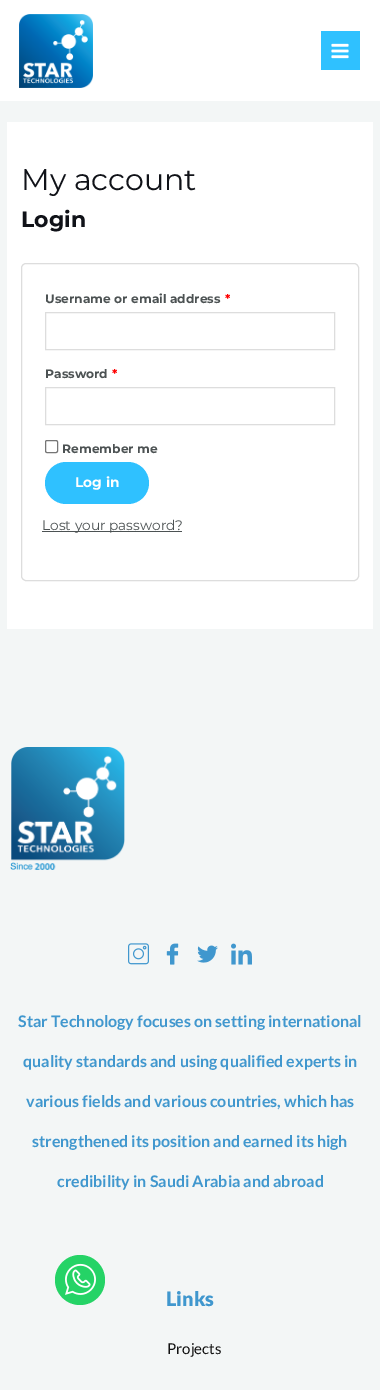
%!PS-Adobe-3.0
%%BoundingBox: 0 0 380 1390
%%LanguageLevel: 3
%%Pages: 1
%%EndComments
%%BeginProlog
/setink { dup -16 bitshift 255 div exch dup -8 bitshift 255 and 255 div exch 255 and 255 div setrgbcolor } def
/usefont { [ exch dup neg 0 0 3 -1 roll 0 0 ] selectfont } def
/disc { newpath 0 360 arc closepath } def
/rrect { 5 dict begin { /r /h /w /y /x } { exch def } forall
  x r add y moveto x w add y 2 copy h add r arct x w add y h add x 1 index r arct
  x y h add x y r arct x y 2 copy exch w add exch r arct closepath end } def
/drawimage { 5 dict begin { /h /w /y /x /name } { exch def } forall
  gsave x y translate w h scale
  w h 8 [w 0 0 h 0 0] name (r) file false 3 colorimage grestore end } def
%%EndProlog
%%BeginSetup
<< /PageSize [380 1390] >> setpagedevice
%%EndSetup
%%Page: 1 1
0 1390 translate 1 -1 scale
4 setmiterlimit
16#F3F6F6 setink
0 0 380 1390 rectfill
16#FFFFFF setink
0 0 380 101 rectfill
(img1.raw) 19 14 74 74 drawimage
16#2FC1FF setink
321 31 39 39 rectfill
(img2.raw) 331 43 18 16 drawimage
16#FFFFFF setink
7 122 366 507 rectfill
/Montserrat-Regular 30 usefont
16#101218 setink
21 190 moveto (My account) show
/Montserrat-Bold 22 usefont
21 227 moveto (Login) show
16#DDDDDD setink
21.5 263.5 337 317 4.5 rrect stroke
/Montserrat-Bold 12.25 usefont
16#4C5253 setink
45 303 moveto (Username or email address) show
16#FF0000 setink
225 303 moveto (*) show
16#DDDDDD setink
45.5 312.5 289 37 rectstroke
16#4C5253 setink
45 378 moveto (Password) show
16#FF0000 setink
112 378 moveto (*) show
16#DDDDDD setink
45.5 387.5 289 37 rectstroke
16#767676 setink
45.5 440.5 12 12 1.5 rrect stroke
16#4C5253 setink
62 453 moveto (Remember me) show
16#2FC1FF setink
45 462 104 42 21 rrect fill
/Montserrat-Bold 13.75 usefont
16#FFFFFF setink
75 487 moveto (Log in) show
16#4C5253 setink
42 531 140 1 rectfill
/Montserrat-Regular 13.75 usefont
42 530 moveto (Lost your password?) show
(img3.raw) 10 747 115 123 drawimage
16#25D366 setink
80 1280 25 disc fill
(img4.raw) 65 1263 31 32 drawimage
(img5.raw) 128 943 21 22 drawimage
(img6.raw) 166 943 13 22 drawimage
(img7.raw) 197 945 21 18 drawimage
(img8.raw) 231 943 21 22 drawimage
/Lato-Bold 16 usefont
16#4097CE setink
[
    [(Star Technology focuses on setting international) 18 1027]
    [(quality standards and using qualified experts in) 23 1067]
    [(various fields and various countries, which has) 26 1107]
    [(strengthened its position and earned its high) 32 1147]
    [(credibility in Saudi Arabia and abroad) 57 1187]
] { aload pop moveto show } forall
/Lato-Black 20 usefont
166 1306 moveto (Links) show
/Lato-Regular 15 usefont
16#111111 setink
167 1354 moveto (Projects) show
showpage
%%EOF
